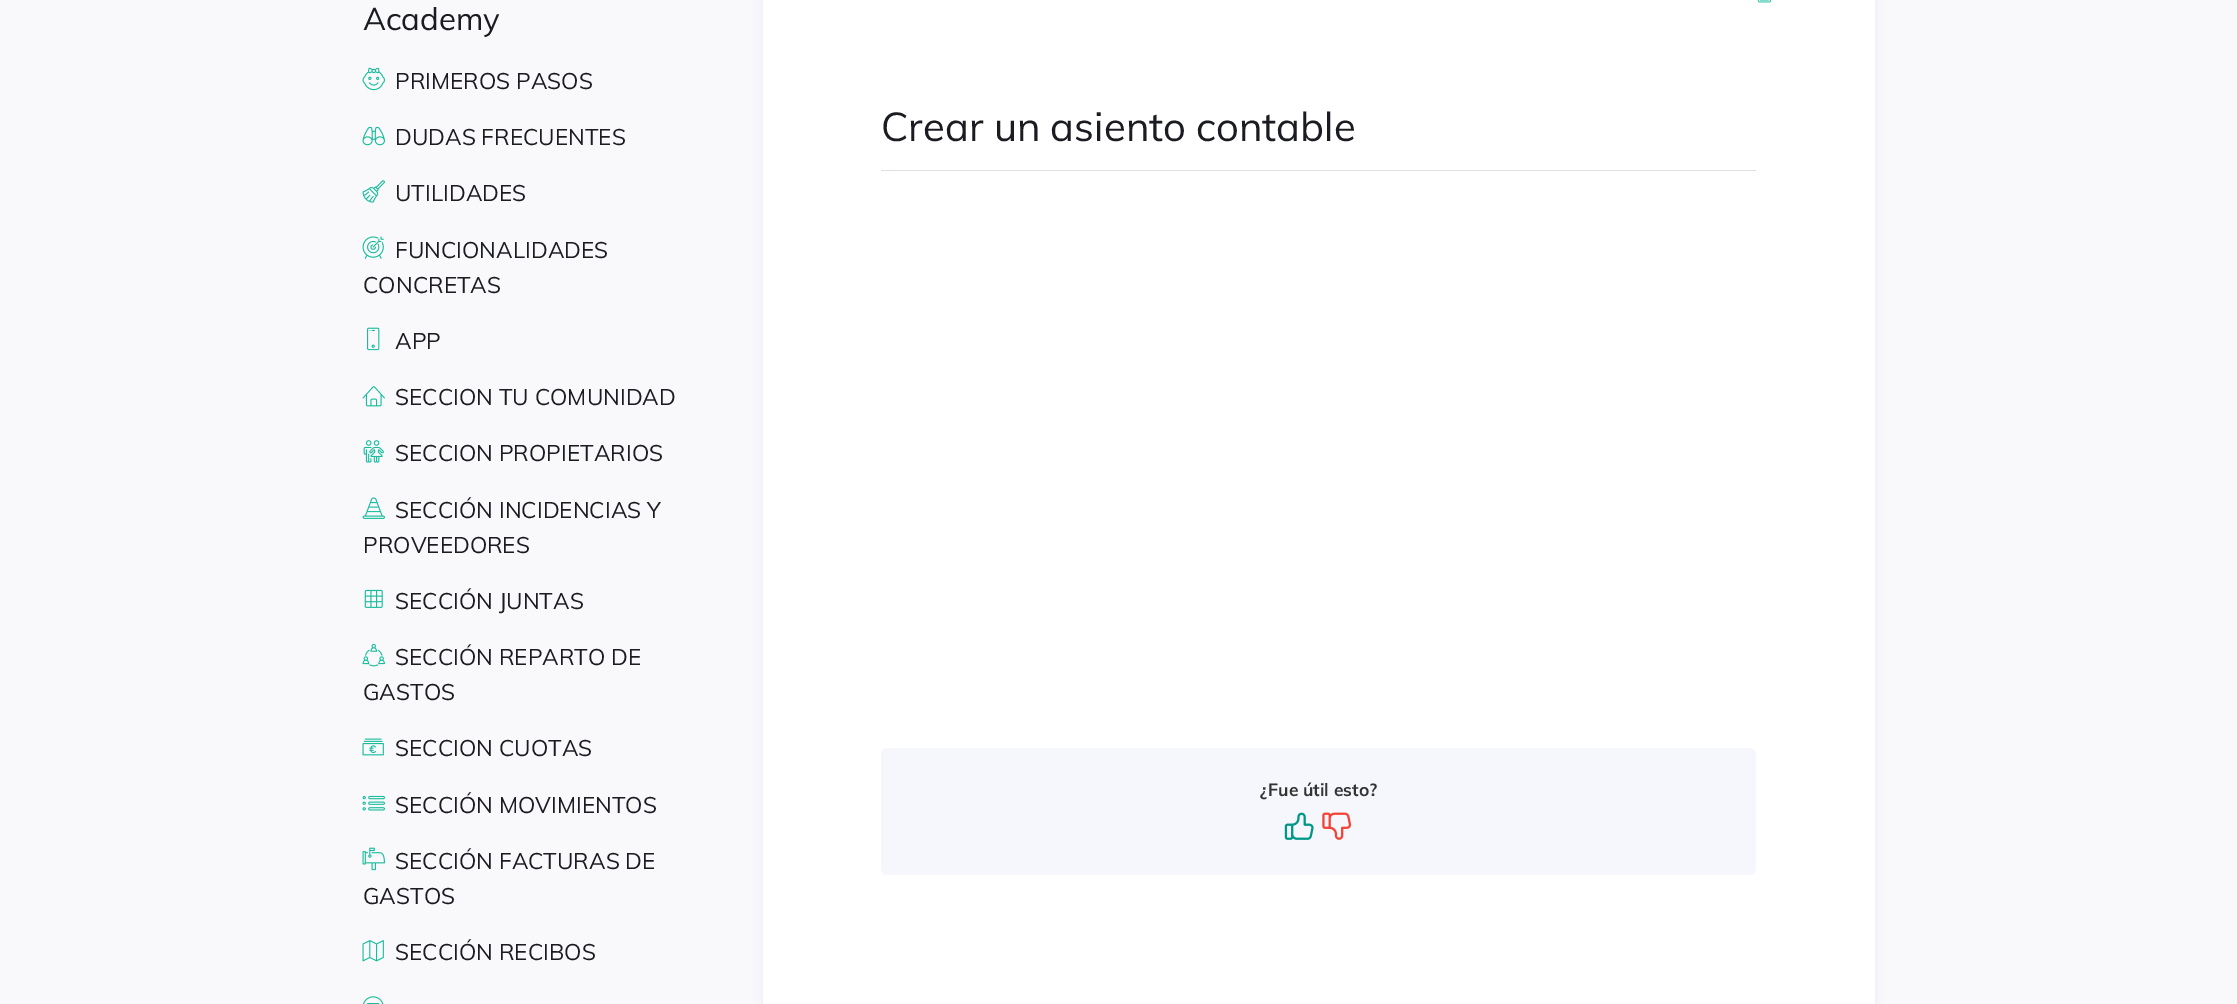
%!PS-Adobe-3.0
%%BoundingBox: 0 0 2237 1004
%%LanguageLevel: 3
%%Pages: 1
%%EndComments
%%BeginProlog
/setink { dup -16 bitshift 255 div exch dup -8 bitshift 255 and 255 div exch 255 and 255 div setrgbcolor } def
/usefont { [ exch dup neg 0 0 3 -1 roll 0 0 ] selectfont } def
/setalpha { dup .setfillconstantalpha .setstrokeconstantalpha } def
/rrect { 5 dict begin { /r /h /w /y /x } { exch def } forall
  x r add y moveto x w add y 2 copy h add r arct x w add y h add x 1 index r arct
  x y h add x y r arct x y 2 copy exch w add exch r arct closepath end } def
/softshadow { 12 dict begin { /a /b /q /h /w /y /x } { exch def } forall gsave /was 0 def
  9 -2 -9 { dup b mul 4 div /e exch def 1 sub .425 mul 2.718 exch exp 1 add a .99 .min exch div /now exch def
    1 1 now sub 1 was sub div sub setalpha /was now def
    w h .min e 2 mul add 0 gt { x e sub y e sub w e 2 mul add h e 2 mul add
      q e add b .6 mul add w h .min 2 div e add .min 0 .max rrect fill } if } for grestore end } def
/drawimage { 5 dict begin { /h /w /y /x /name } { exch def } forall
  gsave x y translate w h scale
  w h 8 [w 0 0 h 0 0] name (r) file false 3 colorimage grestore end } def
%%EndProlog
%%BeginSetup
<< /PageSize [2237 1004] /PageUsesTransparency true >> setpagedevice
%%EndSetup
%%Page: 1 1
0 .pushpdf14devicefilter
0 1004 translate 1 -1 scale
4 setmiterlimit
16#F9F9FC setink
0 0 2237 1004 rectfill
/Muli-Regular 31.25 usefont
16#1B1C21 setink
363 30 moveto (Academy) show
(img1.raw) 362 67 23 24 drawimage
/Muli-Regular 22.5 usefont
395 89 moveto (PRIMEROS PASOS) show
(img2.raw) 362 126 23 20 drawimage
395 145 moveto (DUDAS FRECUENTES) show
(img3.raw) 362 180 23 23 drawimage
395 201 moveto (UTILIDADES) show
(img4.raw) 362 236 22 23 drawimage
395 258 moveto (FUNCIONALIDADES) show
363 293 moveto (CONCRETAS) show
(img5.raw) 367 327 13 24 drawimage
395 349 moveto (APP) show
(img6.raw) 362 386 23 21 drawimage
395 405 moveto (SECCION TU COMUNIDAD) show
(img7.raw) 363 440 21 23 drawimage
395 461 moveto (SECCION PROPIETARIOS) show
(img8.raw) 362 497 23 22 drawimage
395 518 moveto (SECCIÓN INCIDENCIAS Y) show
363 553 moveto (PROVEEDORES) show
(img9.raw) 364 589 19 19 drawimage
395 609 moveto (SECCIÓN JUNTAS) show
(img10.raw) 362 643 23 24 drawimage
395 665 moveto (SECCIÓN REPARTO DE) show
363 700 moveto (GASTOS) show
(img11.raw) 362 738 22 18 drawimage
395 756 moveto (SECCION CUOTAS) show
(img12.raw) 362 795 23 16 drawimage
395 813 moveto (SECCIÓN MOVIMIENTOS) show
(img13.raw) 362 847 23 24 drawimage
395 869 moveto (SECCIÓN FACTURAS DE) show
363 904 moveto (GASTOS) show
(img14.raw) 362 940 22 22 drawimage
395 960 moveto (SECCIÓN RECIBOS) show
(img15.raw) 363 996 21 8 drawimage
16#583ABC setink
763 -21 1112 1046 6 5 0.08 softshadow
16#FFFFFF setink
763 0 1112 1004 rectfill
(img16.raw) 1757 0 14 3 drawimage
16#DCE1E7 setink
881 170 875 1 rectfill
/Muli-Regular 40 usefont
16#1B1C21 setink
881 141 moveto (Crear un asiento contable) show
16#F6F7FC setink
881 748 875 127 6 rrect fill
/Muli-Bold 17.5 usefont
16#333333 setink
1260 796 moveto (¿Fue útil esto?) show
(img17.raw) 1284 812 30 28 drawimage
(img18.raw) 1322 812 30 28 drawimage
.poppdf14devicefilter showpage
%%EOF
